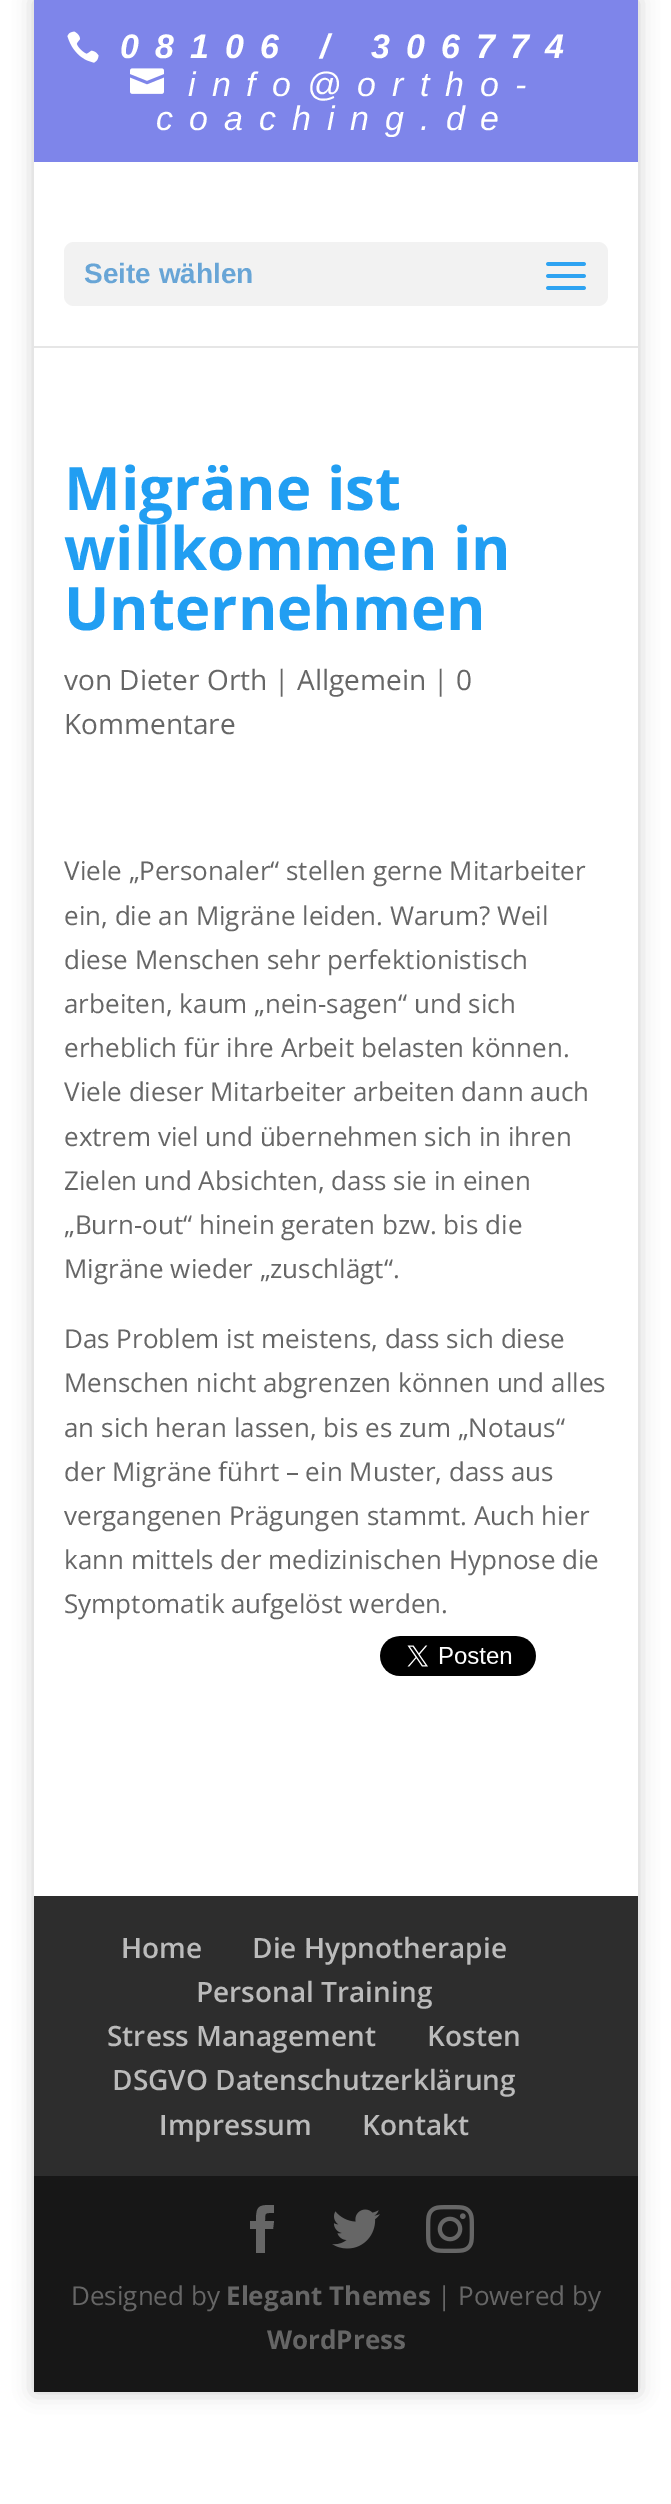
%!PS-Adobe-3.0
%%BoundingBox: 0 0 671 2504
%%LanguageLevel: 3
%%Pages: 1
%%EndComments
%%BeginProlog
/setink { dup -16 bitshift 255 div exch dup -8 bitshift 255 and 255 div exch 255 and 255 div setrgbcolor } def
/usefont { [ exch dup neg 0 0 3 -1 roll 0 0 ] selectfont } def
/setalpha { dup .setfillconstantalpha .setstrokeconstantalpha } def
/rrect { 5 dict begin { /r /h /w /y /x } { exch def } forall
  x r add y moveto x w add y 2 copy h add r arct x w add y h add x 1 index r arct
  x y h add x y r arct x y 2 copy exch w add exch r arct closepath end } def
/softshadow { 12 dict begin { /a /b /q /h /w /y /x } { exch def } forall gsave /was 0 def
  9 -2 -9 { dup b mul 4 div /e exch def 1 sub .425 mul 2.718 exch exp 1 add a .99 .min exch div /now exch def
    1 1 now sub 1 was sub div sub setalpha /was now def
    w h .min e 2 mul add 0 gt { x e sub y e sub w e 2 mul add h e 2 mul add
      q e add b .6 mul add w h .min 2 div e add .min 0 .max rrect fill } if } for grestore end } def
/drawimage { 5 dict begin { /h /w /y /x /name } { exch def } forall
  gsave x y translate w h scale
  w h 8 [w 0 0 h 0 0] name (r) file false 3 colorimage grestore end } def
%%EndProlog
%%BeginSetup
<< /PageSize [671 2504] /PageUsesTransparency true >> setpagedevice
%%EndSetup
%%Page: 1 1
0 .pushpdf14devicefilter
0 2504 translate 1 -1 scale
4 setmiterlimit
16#FFFFFF setink
0 0 671 2504 rectfill
gsave
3 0 moveto 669 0 lineto 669 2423 lineto 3 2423 lineto closepath 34 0 moveto 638 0 lineto 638 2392 lineto 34 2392 lineto closepath eoclip newpath
16#000000 setink
34 0 604 2392 0 10 0.2 softshadow
grestore
16#7E85EA setink
34 0 604 162 rectfill
(img1.raw) 67 31 32 32 drawimage
/LiberationSans-BoldItalic 34 usefont
16#FFFFFF setink
120 58 moveto 16 0 (08106 / 306774) ashow
(img2.raw) 130 68 34 26 drawimage
/LiberationSans-Italic 34 usefont
188 96 moveto 16 0 (info@ortho-) ashow
156 130 moveto 16 0 (coaching.de) ashow
16#E6E6E6 setink
34 346 604 2 rectfill
16#F2F2F2 setink
64 242 544 64 10 rrect fill
/LiberationSans-Bold 28 usefont
16#68A5D6 setink
84 283 moveto (Seite wählen) show
(img3.raw) 546 262 40 28 drawimage
/OpenSans-Bold 60 usefont
16#219EF2 setink
[
    [(Migräne ist) 64 510]
    [(willkommen in) 64 570]
    [(Unternehmen) 64 630]
] { aload pop moveto show } forall
/OpenSans-Regular 28 usefont
16#666666 setink
64 690 moveto (von Dieter Orth | Allgemein | 0) show
64 734 moveto (Kommentare) show
/OpenSans-Regular 26 usefont
[
    [(Viele „Personaler“ stellen gerne Mitarbeiter) 64 880]
    [(ein, die an Migräne leiden. Warum? Weil) 64 925]
    [(diese Menschen sehr perfektionistisch) 64 969]
    [(arbeiten, kaum „nein-sagen“ und sich) 64 1013]
    [(erheblich für ihre Arbeit belasten können.) 64 1057]
    [(Viele dieser Mitarbeiter arbeiten dann auch) 64 1101]
    [(extrem viel und übernehmen sich in ihren) 64 1146]
    [(Zielen und Absichten, dass sie in einen) 64 1190]
    [(„Burn-out“ hinein geraten bzw. bis die) 64 1234]
    [(Migräne wieder „zuschlägt“.) 64 1278]
    [(Das Problem ist meistens, dass sich diese) 64 1348]
    [(Menschen nicht abgrenzen können und alles) 64 1392]
    [(an sich heran lassen, bis es zum „Notaus“) 64 1437]
    [(der Migräne führt – ein Muster, dass aus) 64 1481]
    [(vergangenen Prägungen stammt. Auch hier) 64 1525]
    [(kann mittels der medizinischen Hypnose die) 64 1569]
    [(Symptomatik aufgelöst werden.) 64 1613]
] { aload pop moveto show } forall
(img4.raw) 380 1636 156 40 drawimage
16#2D2D2D setink
34 1896 604 280 rectfill
/OpenSans-SemiBold 28 usefont
16#BBBBBB setink
[
    [(Home) 121 1958]
    [(Die Hypnotherapie) 252 1958]
    [(Personal Training) 196 2002]
    [(Stress Management) 107 2046]
    [(Kosten) 427 2046]
    [(DSGVO Datenschutzerklärung) 112 2090]
    [(Impressum) 159 2135]
    [(Kontakt) 362 2135]
] { aload pop moveto show } forall
16#171717 setink
34 2176 604 216 rectfill
16#666666 setink
256 2253 moveto 265 2253 lineto 265 2229 lineto 273 2229 lineto 274 2221 lineto 265 2221 lineto 265 2212 265 2213 274 2213 curveto 274 2205 lineto 259 2205 256 2205 256 2221 curveto 250 2221 lineto 250 2229 lineto 256 2229 lineto closepath fill
(img5.raw) 332 2209 48 40 drawimage
(img6.raw) 426 2205 48 48 drawimage
/OpenSans-Regular 26 usefont
71 2305 moveto (Designed by) show
/OpenSans-Bold 26 usefont
226 2305 moveto (Elegant Themes) show
/OpenSans-Regular 26 usefont
437 2305 moveto (| Powered by) show
/OpenSans-Bold 26 usefont
267 2349 moveto (WordPress) show
.poppdf14devicefilter showpage
%%EOF
